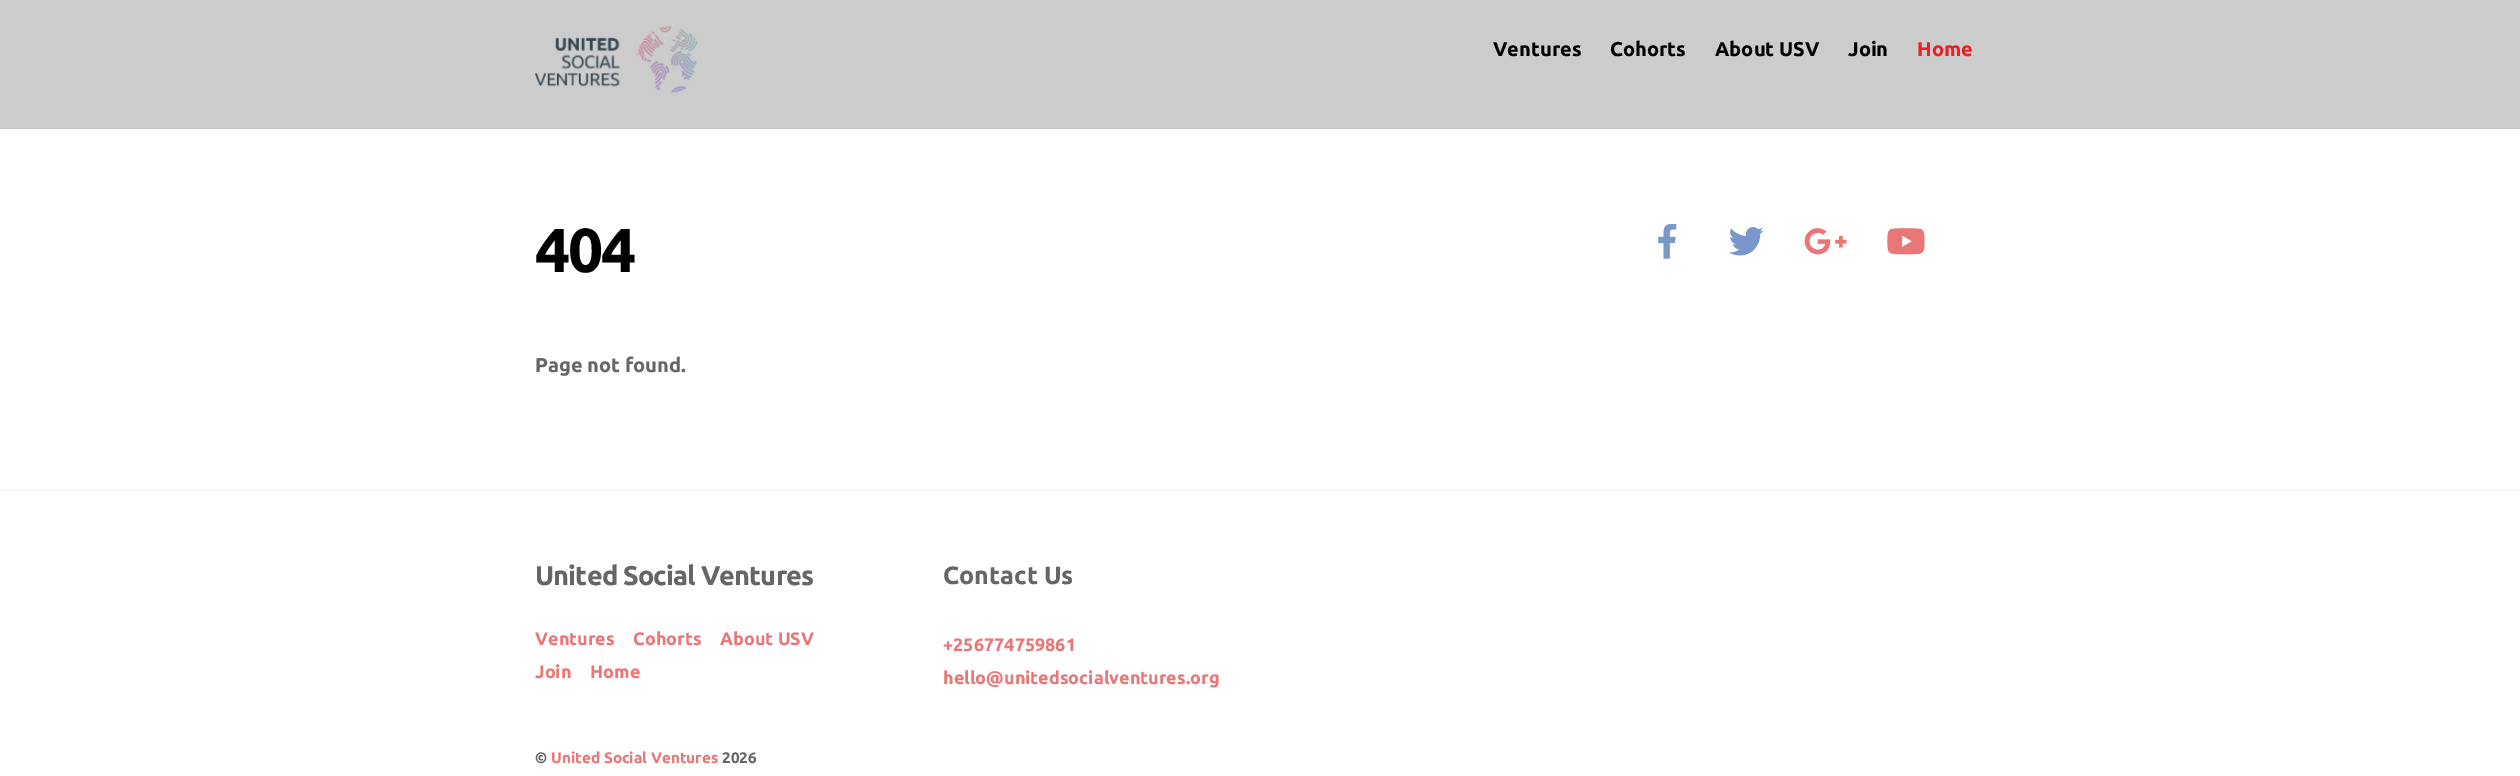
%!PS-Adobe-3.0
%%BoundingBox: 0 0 2520 776
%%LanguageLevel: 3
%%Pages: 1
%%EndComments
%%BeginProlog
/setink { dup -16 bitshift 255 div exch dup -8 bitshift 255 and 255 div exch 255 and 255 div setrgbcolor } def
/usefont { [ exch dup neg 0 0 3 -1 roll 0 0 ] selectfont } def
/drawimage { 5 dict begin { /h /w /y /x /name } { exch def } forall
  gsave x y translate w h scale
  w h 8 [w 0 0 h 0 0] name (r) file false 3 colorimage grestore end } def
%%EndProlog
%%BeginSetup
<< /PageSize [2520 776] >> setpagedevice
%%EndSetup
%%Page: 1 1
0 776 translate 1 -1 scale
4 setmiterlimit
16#FFFFFF setink
0 0 2520 776 rectfill
16#CCCCCC setink
0 0 2520 128 rectfill
16#C2C2C2 setink
0 128 2520 1 rectfill
(img1.raw) 535 26 163 67 drawimage
/Ubuntu-Bold 20 usefont
16#000000 setink
[
    [(Ventures) 1493 56]
    [(Cohorts) 1610 56]
    [(About USV) 1715 56]
    [(Join) 1848 56]
] { aload pop moveto show } forall
16#ED1E24 setink
1917 56 moveto (Home) show
/Ubuntu-Bold 62 usefont
16#000000 setink
535 272 moveto -2 0 (404) ashow
/Ubuntu-Bold 20 usefont
16#666666 setink
535 372 moveto (Page not found.) show
(img2.raw) 1658 224 19 35 drawimage
(img3.raw) 1729 227 35 29 drawimage
(img4.raw) 1804 228 43 27 drawimage
(img5.raw) 1887 228 38 27 drawimage
16#F2F2F2 setink
0 490 2520 1 rectfill
/Ubuntu-Bold 27 usefont
16#666666 setink
535 585 moveto -0.8 0 (United Social Ventures) ashow
/Ubuntu-Bold 18 usefont
16#E97778 setink
[
    [(Ventures) 535 645]
    [(Cohorts) 633 645]
    [(About USV) 720 645]
    [(Join) 535 678]
    [(Home) 590 678]
] { aload pop moveto show } forall
/Ubuntu-Bold 25 usefont
16#666666 setink
943 584 moveto (Contact Us) show
/Ubuntu-Bold 18 usefont
16#E97778 setink
943 651 moveto (+256774759861) show
943 684 moveto (hello@unitedsocialventures.org) show
/Ubuntu-Bold 15.25 usefont
16#666666 setink
535 763 moveto (©) show
16#E97778 setink
551 763 moveto (United Social Ventures) show
16#666666 setink
722 763 moveto (2026) show
showpage
%%EOF
